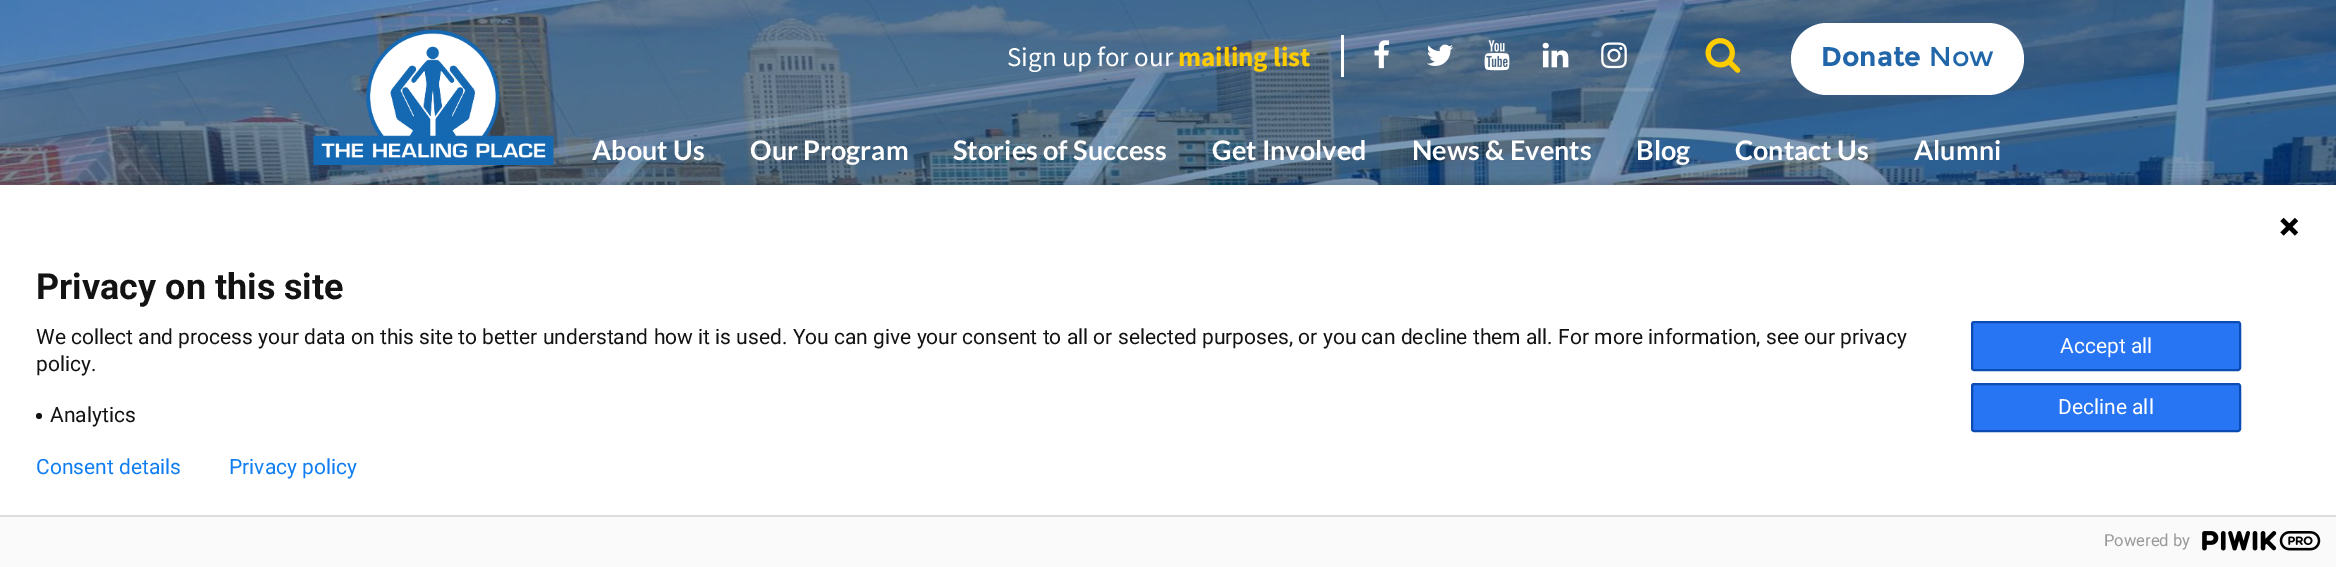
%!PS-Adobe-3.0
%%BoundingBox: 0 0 2336 567
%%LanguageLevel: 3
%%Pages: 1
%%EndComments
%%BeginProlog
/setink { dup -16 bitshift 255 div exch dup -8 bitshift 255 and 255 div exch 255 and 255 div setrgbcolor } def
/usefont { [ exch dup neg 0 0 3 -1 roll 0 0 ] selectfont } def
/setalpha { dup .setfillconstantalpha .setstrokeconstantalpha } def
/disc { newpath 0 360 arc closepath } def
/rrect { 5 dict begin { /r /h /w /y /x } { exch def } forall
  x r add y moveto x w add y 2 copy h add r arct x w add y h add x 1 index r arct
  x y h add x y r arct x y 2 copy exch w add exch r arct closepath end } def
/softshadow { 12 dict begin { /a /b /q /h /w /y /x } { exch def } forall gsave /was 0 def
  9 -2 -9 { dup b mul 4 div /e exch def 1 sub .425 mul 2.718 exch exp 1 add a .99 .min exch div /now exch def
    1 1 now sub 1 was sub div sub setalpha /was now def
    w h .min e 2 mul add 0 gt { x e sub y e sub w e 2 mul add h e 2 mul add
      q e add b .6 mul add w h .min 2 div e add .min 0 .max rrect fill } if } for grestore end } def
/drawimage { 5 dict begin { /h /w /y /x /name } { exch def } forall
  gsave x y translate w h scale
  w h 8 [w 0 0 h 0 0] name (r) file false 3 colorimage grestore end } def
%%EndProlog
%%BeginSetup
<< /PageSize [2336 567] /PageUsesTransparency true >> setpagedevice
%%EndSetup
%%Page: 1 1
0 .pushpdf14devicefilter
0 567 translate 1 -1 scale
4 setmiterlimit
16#FFFFFF setink
0 0 2336 567 rectfill
(img1.raw) 0 0 2336 185 drawimage
(img2.raw) 313 30 241 135 drawimage
1341 35 3 42 rectfill
/SourceSansPro-Regular 27 usefont
1007 66 moveto (Sign up for our) show
/SourceSansPro-Bold 27 usefont
16#FFCC00 setink
1178 66 moveto (mailing list) show
(img3.raw) 1374 40 15 29 drawimage
(img4.raw) 1427 44 26 22 drawimage
(img5.raw) 1484 40 26 31 drawimage
(img6.raw) 1542 42 27 26 drawimage
(img7.raw) 1601 42 26 27 drawimage
(img8.raw) 1705 38 36 35 drawimage
16#FFFFFF setink
1791 23 233 72 36 rrect fill
/Montserrat-Bold 27 usefont
16#2266AA setink
1821 66 moveto (Donate) show
/Montserrat-Regular 27 usefont
1929 66 moveto (Now) show
/Lato-Bold 27 usefont
16#FFFFFF setink
[
    [(About Us) 592 160]
    [(Our Program) 750 160]
    [(Stories of Success) 953 160]
    [(Get Involved) 1212 160]
    [(News & Events) 1412 160]
    [(Blog) 1636 160]
    [(Contact Us) 1735 160]
    [(Alumni) 1914 160]
] { aload pop moveto show } forall
16#000000 setink
-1 180 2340 386 0 4 0.14 softshadow
16#FFFFFF setink
0 185 2336 330 rectfill
(img9.raw) 2280 217 19 19 drawimage
/Roboto-Bold 36 usefont
16#131313 setink
36 299 moveto (Privacy on this site) show
/Roboto-Regular 21 usefont
36 344 moveto (We collect and process your data on this site to better understand how it is used. You can give your consent to all or selected purposes, or you can decline them all. For more information, see our privacy) show
36 371 moveto (policy.) show
39 416 3 disc fill
50 422 moveto (Analytics) show
16#2775F2 setink
1972 322 268 48 2 rrect gsave fill grestore
16#0B4BB3 setink
2 setlinewidth
stroke
16#FFFFFF setink
2060 353 moveto (Accept all) show
16#2775F2 setink
1972 384 268 47 2 rrect gsave fill grestore
16#0B4BB3 setink
stroke
16#FFFFFF setink
2058 414 moveto (Decline all) show
16#107EF1 setink
36 474 moveto (Consent details) show
229 474 moveto (Privacy policy) show
16#FAFAFA setink
0 517 2336 50 rectfill
16#DDDDDD setink
0 515 2336 2 rectfill
/Roboto-Regular 16.5 usefont
16#999999 setink
2104 546 moveto (Powered by) show
(img10.raw) 2202 531 119 20 drawimage
.poppdf14devicefilter showpage
%%EOF
